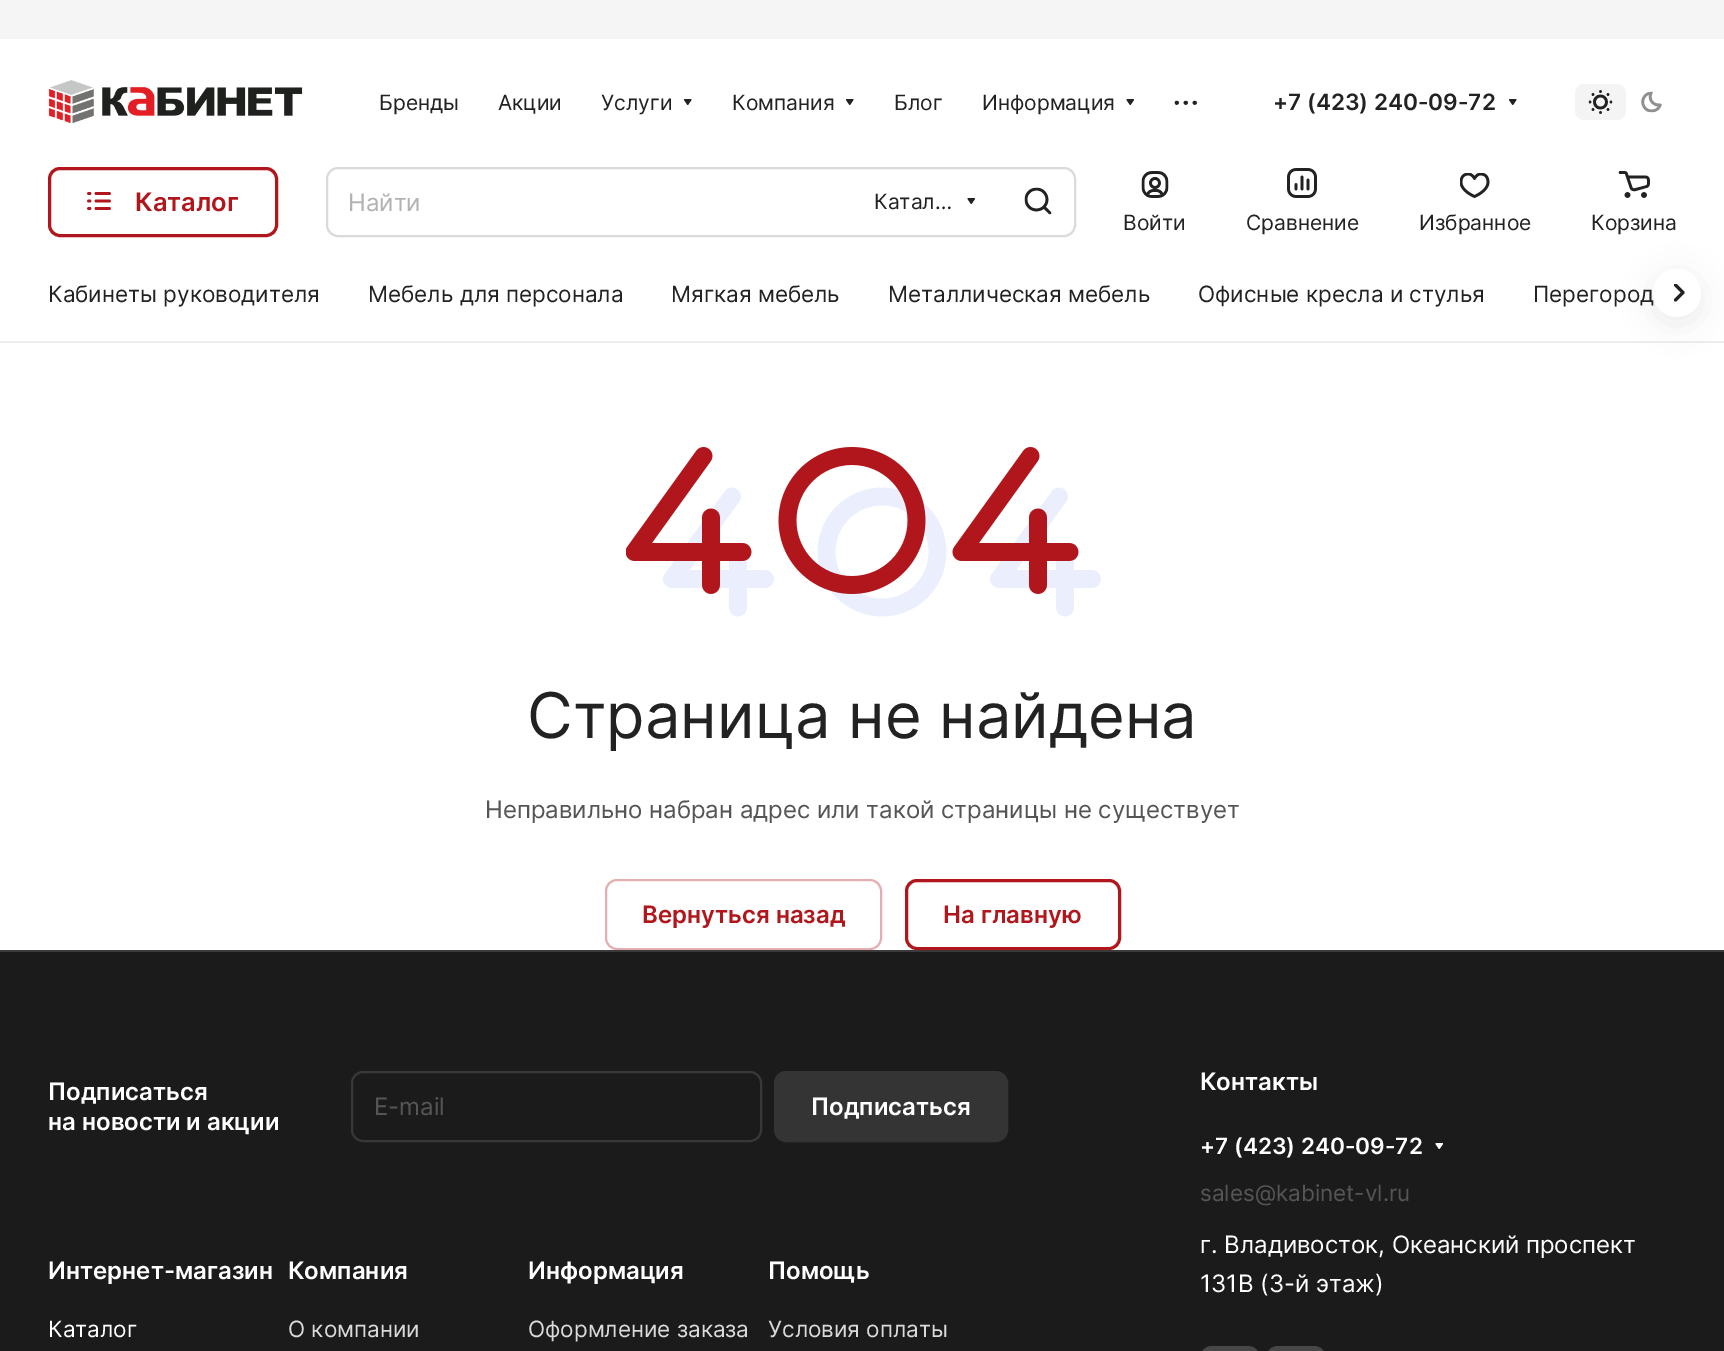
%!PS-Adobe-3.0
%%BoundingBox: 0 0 1724 1351
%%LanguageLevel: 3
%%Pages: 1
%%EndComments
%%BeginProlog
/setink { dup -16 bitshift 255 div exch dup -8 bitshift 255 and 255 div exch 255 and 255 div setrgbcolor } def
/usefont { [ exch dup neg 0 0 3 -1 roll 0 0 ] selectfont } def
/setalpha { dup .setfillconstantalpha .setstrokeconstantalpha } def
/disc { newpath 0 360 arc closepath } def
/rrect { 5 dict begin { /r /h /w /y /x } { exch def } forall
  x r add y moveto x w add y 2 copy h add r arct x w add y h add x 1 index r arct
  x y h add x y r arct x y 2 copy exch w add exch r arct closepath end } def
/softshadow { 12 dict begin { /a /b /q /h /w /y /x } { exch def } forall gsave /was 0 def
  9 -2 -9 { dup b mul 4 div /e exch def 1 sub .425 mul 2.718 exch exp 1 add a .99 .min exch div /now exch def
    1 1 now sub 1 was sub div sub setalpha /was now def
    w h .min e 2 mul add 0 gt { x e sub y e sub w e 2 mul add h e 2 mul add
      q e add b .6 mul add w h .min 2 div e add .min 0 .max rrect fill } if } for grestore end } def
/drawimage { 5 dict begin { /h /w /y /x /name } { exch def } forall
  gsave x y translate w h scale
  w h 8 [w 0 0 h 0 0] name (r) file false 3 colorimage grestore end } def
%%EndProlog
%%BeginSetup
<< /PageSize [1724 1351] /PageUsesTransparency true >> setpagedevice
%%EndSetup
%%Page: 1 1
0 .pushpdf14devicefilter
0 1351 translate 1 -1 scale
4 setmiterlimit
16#FFFFFF setink
0 0 1724 1351 rectfill
16#F5F5F5 setink
0 0 1724 39 rectfill
16#EDEDED setink
0 341 1724 2 rectfill
(img1.raw) 48 80 255 44 drawimage
/Inter-Regular 21 usefont
16#222222 setink
[
    [(Бренды) 379 110]
    [(Акции) 498 110]
    [(Услуги) 601 110]
] { aload pop moveto show } forall
(img2.raw) 684 99 8 6 drawimage
732 110 moveto (Компания) show
(img2.raw) 846 99 8 6 drawimage
894 110 moveto (Блог) show
982 110 moveto (Информация) show
(img3.raw) 1126 99 8 6 drawimage
(img4.raw) 1174 100 23 5 drawimage
/Inter-SemiBold 22.5 usefont
1273 110 moveto (+7 \(423\) 240-09-72) show
(img2.raw) 1509 99 8 6 drawimage
16#F4F4F4 setink
1575 84 51 36 9 rrect fill
(img5.raw) 1588 90 25 24 drawimage
(img6.raw) 1641 91 21 22 drawimage
16#B0161B setink
3 setlinewidth
49.5 168.5 227 67 10.5 rrect stroke
(img7.raw) 87 192 24 18 drawimage
/Inter-SemiBold 25.5 usefont
135 211 moveto (Каталог) show
16#DADADA setink
2 setlinewidth
327 168 748 68 11 rrect stroke
/Inter-Regular 24 usefont
16#B2B2B2 setink
348 211 moveto (Найти) show
/Inter-Regular 21 usefont
16#222222 setink
874 209 moveto (Катал…) show
(img3.raw) 967 198 8 6 drawimage
(img8.raw) 1024 187 28 28 drawimage
(img9.raw) 1141 171 28 27 drawimage
1123 230 moveto (Войти) show
(img10.raw) 1287 168 30 30 drawimage
1246 230 moveto (Сравнение) show
(img11.raw) 1460 173 30 25 drawimage
1419 230 moveto (Избранное) show
(img12.raw) 1618 171 32 27 drawimage
16#000000 setink
1653 276 48 48 24 15 0.07 softshadow
16#222222 setink
1591 230 moveto (Корзина) show
/Inter-Regular 22.5 usefont
[
    [(Кабинеты руководителя) 48 302]
    [(Мебель для персонала) 368 302]
    [(Мягкая мебель) 671 302]
    [(Металлическая мебель) 888 302]
    [(Офисные кресла и стулья) 1198 302]
    [(Перегород) 1533 302]
] { aload pop moveto show } forall
16#FFFFFF setink
1677 293 24 disc fill
gsave
1674 284 11 18 rectclip
16#222222 setink
3 setlinewidth
1 setlinecap
1 setlinejoin
1675.5 285 moveto 1683 292.5 lineto 1675.5 300 lineto stroke
grestore
(img13.raw) 626 447 475 170 drawimage
/Inter-Regular 63 usefont
16#222222 setink
527 738 moveto (Страница не найдена) show
/Inter-Regular 24 usefont
16#555555 setink
485 818 moveto (Неправильно набран адрес или такой страницы не существует) show
16#E4ADAF setink
606 880 275 69 11 rrect stroke
/Inter-SemiBold 24 usefont
16#B0161B setink
642 923 moveto (Вернуться назад) show
3 setlinewidth
906.5 880.5 213 68 10.5 rrect stroke
943 923 moveto (На главную) show
16#1B1B1B setink
0 952 1724 399 rectfill
16#3A3A3A setink
0 950 1724 2 rectfill
16#FFFFFF setink
48 1100 moveto (Подписаться) show
48 1130 moveto (на новости и акции) show
16#383838 setink
2 setlinewidth
352 1072 409 69 11 rrect stroke
/Inter-Regular 24 usefont
16#555555 setink
374 1115 moveto (E-mail) show
16#343434 setink
775 1072 232 69 11 rrect gsave fill grestore
stroke
/Inter-SemiBold 24 usefont
16#FFFFFF setink
811 1115 moveto (Подписаться) show
48 1279 moveto (Интернет-магазин) show
/Inter-Regular 22.5 usefont
48 1337 moveto (Каталог) show
/Inter-SemiBold 24 usefont
288 1279 moveto (Компания) show
/Inter-Regular 22.5 usefont
16#DADADA setink
288 1337 moveto (О компании) show
/Inter-SemiBold 24 usefont
16#FFFFFF setink
528 1279 moveto (Информация) show
/Inter-Regular 22.5 usefont
16#DADADA setink
528 1337 moveto (Оформление заказа) show
/Inter-SemiBold 24 usefont
16#FFFFFF setink
768 1279 moveto (Помощь) show
/Inter-Regular 22.5 usefont
16#DADADA setink
768 1337 moveto (Условия оплаты) show
/Inter-SemiBold 24 usefont
16#FFFFFF setink
1200 1090 moveto (Контакты) show
/Inter-SemiBold 22.5 usefont
1200 1154 moveto (+7 \(423\) 240-09-72) show
(img14.raw) 1435 1143 8 6 drawimage
/Inter-Regular 22.5 usefont
16#555555 setink
1200 1201 moveto (sales@kabinet-vl.ru) show
/Inter-Regular 24 usefont
16#FFFFFF setink
1200 1253 moveto (г. Владивосток, Океанский проспект) show
1200 1292 moveto (131В \(3-й этаж\)) show
16#474747 setink
1200 1346 60 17 12 rrect fill
1266 1346 60 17 12 rrect fill
.poppdf14devicefilter showpage
%%EOF
